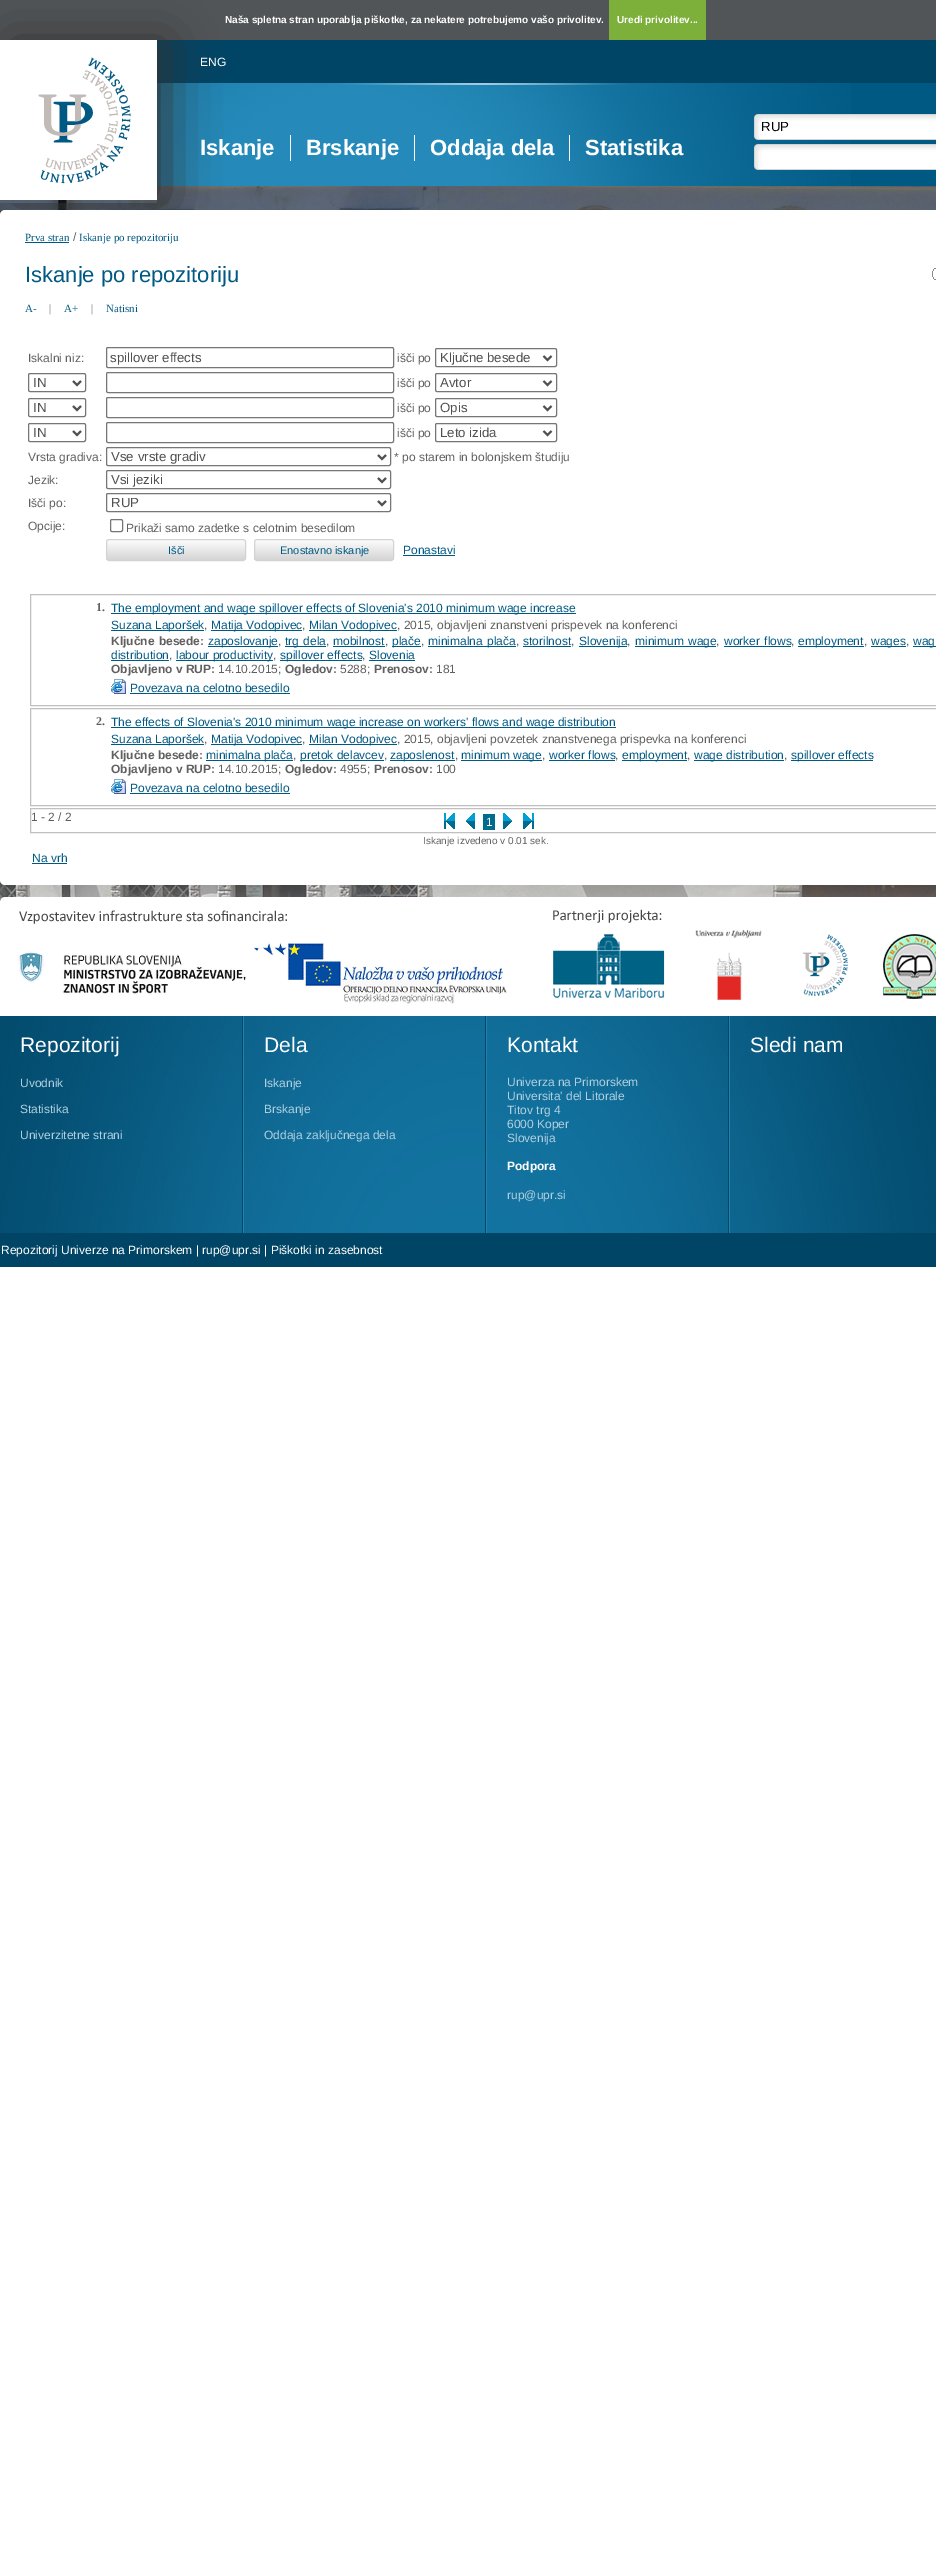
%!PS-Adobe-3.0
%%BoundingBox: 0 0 936 2573
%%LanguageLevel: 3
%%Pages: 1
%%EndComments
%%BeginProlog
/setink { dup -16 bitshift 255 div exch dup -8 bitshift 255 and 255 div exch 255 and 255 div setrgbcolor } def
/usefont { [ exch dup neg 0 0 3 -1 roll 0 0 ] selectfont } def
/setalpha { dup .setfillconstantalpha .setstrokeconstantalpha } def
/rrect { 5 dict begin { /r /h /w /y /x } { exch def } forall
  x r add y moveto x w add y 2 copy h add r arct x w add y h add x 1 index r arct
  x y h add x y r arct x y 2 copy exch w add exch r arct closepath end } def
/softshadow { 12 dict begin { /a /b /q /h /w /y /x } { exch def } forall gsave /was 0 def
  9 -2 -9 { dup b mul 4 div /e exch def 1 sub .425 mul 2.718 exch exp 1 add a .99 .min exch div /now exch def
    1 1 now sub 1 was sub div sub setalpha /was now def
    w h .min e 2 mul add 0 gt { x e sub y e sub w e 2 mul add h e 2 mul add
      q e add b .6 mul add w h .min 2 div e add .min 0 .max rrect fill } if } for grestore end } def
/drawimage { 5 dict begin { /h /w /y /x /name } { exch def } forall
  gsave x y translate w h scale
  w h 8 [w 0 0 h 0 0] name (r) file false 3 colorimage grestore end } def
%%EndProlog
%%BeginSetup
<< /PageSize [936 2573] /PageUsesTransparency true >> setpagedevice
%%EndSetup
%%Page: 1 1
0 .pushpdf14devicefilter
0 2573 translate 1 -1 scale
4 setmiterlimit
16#FFFFFF setink
0 0 936 2573 rectfill
16#525557 setink
0 0 936 40 rectfill
/LiberationSans-Bold 10 usefont
16#FFFFFF setink
225 23 moveto (Naša spletna stran uporablja piškotke, za nekatere potrebujemo vašo privolitev.) show
16#7DAF3B setink
609 0 97 40 rectfill
16#FFFFFF setink
617 23 moveto (Uredi privolitev...) show
(img1.raw) 157 40 779 146 drawimage
(img2.raw) 0 186 936 716 drawimage
(img3.raw) 157 83 694 103 drawimage
gsave
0 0 moveto 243 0 lineto 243 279 lineto 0 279 lineto closepath 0 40 moveto 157 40 lineto 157 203 lineto 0 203 lineto closepath eoclip newpath
16#333333 setink
10 40 157 163 0 25 1 softshadow
grestore
(img4.raw) 0 40 157 160 drawimage
/LiberationSans-Regular 12 usefont
200 66 moveto (ENG) show
(img5.raw) 754 114 182 26 drawimage
/LiberationSans-Regular 13.25 usefont
16#000000 setink
761 131 moveto (RUP) show
(img6.raw) 754 144 182 26 drawimage
/LiberationSans-Bold 22 usefont
16#FFFFFF setink
200 155 moveto (Iskanje) show
290 135 1 26 rectfill
306 155 moveto (Brskanje) show
414 135 1 26 rectfill
430 155 moveto (Oddaja dela) show
569 135 1 26 rectfill
585 155 moveto (Statistika) show
0 210 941 675 5 rrect fill
/LiberationSerif-Regular 11 usefont
16#005983 setink
25 241 moveto (Prva stran) show
25 242 44 1 rectfill
/LiberationSans-Regular 12 usefont
16#606060 setink
73 241 moveto (/) show
/LiberationSerif-Regular 11 usefont
16#005983 setink
79 241 moveto (Iskanje po repozitoriju) show
/LiberationSans-Regular 22 usefont
25 282 moveto (Iskanje po repozitoriju) show
(img7.raw) 932 268 4 12 drawimage
/LiberationSerif-Regular 11 usefont
25 312 moveto (A-) show
16#606060 setink
49 312 moveto (|) show
16#005983 setink
64 312 moveto (A+) show
16#606060 setink
91 312 moveto (|) show
16#005983 setink
106 312 moveto (Natisni) show
/LiberationSans-Regular 12 usefont
16#606060 setink
28 362 moveto (Iskalni niz:) show
16#767676 setink
106.5 347.5 287 20 1.5 rrect stroke
/LiberationSans-Regular 13.25 usefont
16#505050 setink
110 362 moveto (spillover effects) show
/LiberationSans-Regular 12 usefont
16#606060 setink
397 362 moveto (išči po) show
16#767676 setink
435.5 348.5 121 18 1.5 rrect stroke
16#505050 setink
2 setlinewidth
543.5 356 moveto 547.5 360 lineto 551.5 356 lineto stroke
/LiberationSans-Regular 13.25 usefont
440 362 moveto (Ključne besede) show
16#767676 setink
1 setlinewidth
28.5 373.5 57 18 1.5 rrect stroke
16#505050 setink
2 setlinewidth
73 381 moveto 77 385 lineto 81 381 lineto stroke
33 387 moveto (IN) show
16#767676 setink
1 setlinewidth
106.5 372.5 287 20 1.5 rrect stroke
/LiberationSans-Regular 12 usefont
16#606060 setink
397 387 moveto (išči po) show
16#767676 setink
435.5 373.5 121 18 1.5 rrect stroke
16#505050 setink
2 setlinewidth
543.5 381 moveto 547.5 385 lineto 551.5 381 lineto stroke
/LiberationSans-Regular 13.25 usefont
440 387 moveto (Avtor) show
16#767676 setink
1 setlinewidth
28.5 398.5 57 18 1.5 rrect stroke
16#505050 setink
2 setlinewidth
73 406 moveto 77 410 lineto 81 406 lineto stroke
33 412 moveto (IN) show
16#767676 setink
1 setlinewidth
106.5 397.5 287 20 1.5 rrect stroke
/LiberationSans-Regular 12 usefont
16#606060 setink
397 412 moveto (išči po) show
16#767676 setink
435.5 398.5 121 18 1.5 rrect stroke
16#505050 setink
2 setlinewidth
543.5 406 moveto 547.5 410 lineto 551.5 406 lineto stroke
/LiberationSans-Regular 13.25 usefont
440 412 moveto (Opis) show
16#767676 setink
1 setlinewidth
28.5 423.5 57 18 1.5 rrect stroke
16#505050 setink
2 setlinewidth
73 431 moveto 77 435 lineto 81 431 lineto stroke
33 437 moveto (IN) show
16#767676 setink
1 setlinewidth
106.5 422.5 287 20 1.5 rrect stroke
/LiberationSans-Regular 12 usefont
16#606060 setink
397 437 moveto (išči po) show
16#767676 setink
435.5 423.5 121 18 1.5 rrect stroke
16#505050 setink
2 setlinewidth
543.5 431 moveto 547.5 435 lineto 551.5 431 lineto stroke
/LiberationSans-Regular 13.25 usefont
440 437 moveto (Leto izida) show
/LiberationSans-Regular 12 usefont
16#606060 setink
28 461 moveto (Vrsta gradiva:) show
16#767676 setink
1 setlinewidth
106.5 447.5 284 18 1.5 rrect stroke
16#505050 setink
2 setlinewidth
378 455 moveto 382 459 lineto 386 455 lineto stroke
/LiberationSans-Regular 13.25 usefont
111 461 moveto (Vse vrste gradiv) show
/LiberationSans-Regular 12 usefont
16#606060 setink
394 461 moveto (* po starem in bolonjskem študiju) show
28 484 moveto (Jezik:) show
16#767676 setink
1 setlinewidth
106.5 470.5 284 18 1.5 rrect stroke
16#505050 setink
2 setlinewidth
378 478 moveto 382 482 lineto 386 478 lineto stroke
/LiberationSans-Regular 13.25 usefont
111 484 moveto (Vsi jeziki) show
/LiberationSans-Regular 12 usefont
16#606060 setink
28 507 moveto (Išči po:) show
16#767676 setink
1 setlinewidth
106.5 493.5 284 18 1.5 rrect stroke
16#505050 setink
2 setlinewidth
378 501 moveto 382 505 lineto 386 501 lineto stroke
/LiberationSans-Regular 13.25 usefont
111 507 moveto (RUP) show
/LiberationSans-Regular 12 usefont
16#606060 setink
28 530 moveto (Opcije:) show
16#767676 setink
1 setlinewidth
110.5 519.5 12 12 1.5 rrect stroke
16#606060 setink
126 532 moveto (Prikaži samo zadetke s celotnim besedilom) show
gsave
106 539 140 22 3 rrect clip newpath
gsave 106 540 moveto 246 540 lineto 246 560 lineto 106 560 lineto closepath clip newpath
<< /ShadingType 2 /ColorSpace /DeviceRGB /Coords [176 540 176 560] /Extend [true true] /Function << /FunctionType 2 /Domain [0 1] /C0 [0.988 0.988 0.988] /C1 [0.835 0.835 0.835] /N 1 >> >> shfill grestore
grestore
16#D3D3D3 setink
106.5 539.5 139 21 2.5 rrect stroke
/LiberationSans-Regular 11 usefont
16#005983 setink
168 554 moveto (Išči) show
gsave
254 539 140 22 3 rrect clip newpath
gsave 254 540 moveto 394 540 lineto 394 560 lineto 254 560 lineto closepath clip newpath
<< /ShadingType 2 /ColorSpace /DeviceRGB /Coords [324 540 324 560] /Extend [true true] /Function << /FunctionType 2 /Domain [0 1] /C0 [0.988 0.988 0.988] /C1 [0.835 0.835 0.835] /N 1 >> >> shfill grestore
grestore
16#D3D3D3 setink
254.5 539.5 139 21 2.5 rrect stroke
16#005983 setink
280 554 moveto (Enostavno iskanje) show
/LiberationSans-Regular 12 usefont
403 554 moveto (Ponastavi) show
403 555 52 1 rectfill
16#C0C0C0 setink
30.5 594.5 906 111 rectstroke
/LiberationSerif-Bold 12 usefont
16#606060 setink
96 611 moveto (1.) show
16#005983 setink
111 613 465 1 rectfill
/LiberationSans-Regular 12 usefont
111 612 moveto (The employment and wage spillover effects of Slovenia's 2010 minimum wage increase) show
111 630 93 1 rectfill
111 629 moveto (Suzana Laporšek) show
16#606060 setink
204 629 moveto (,) show
16#005983 setink
211 630 91 1 rectfill
211 629 moveto (Matija Vodopivec) show
16#606060 setink
302 629 moveto (,) show
16#005983 setink
309 630 88 1 rectfill
309 629 moveto (Milan Vodopivec) show
16#606060 setink
397 629 moveto (, 2015, objavljeni znanstveni prispevek na konferenci) show
/LiberationSans-Bold 12 usefont
111 645 moveto 1 0 32 (Ključne besede:) widthshow
16#005983 setink
208 646 70 1 rectfill
/LiberationSans-Regular 12 usefont
208 645 moveto (zaposlovanje) show
16#606060 setink
278 645 moveto (,) show
16#005983 setink
285 646 41 1 rectfill
285 645 moveto 1 0 32 (trg dela) widthshow
16#606060 setink
326 645 moveto (,) show
16#005983 setink
333 645 moveto (mobilnost) show
333 646 52 1 rectfill
16#606060 setink
385 645 moveto (,) show
16#005983 setink
392 646 29 1 rectfill
392 645 moveto (plače) show
16#606060 setink
421 645 moveto (,) show
16#005983 setink
428 646 88 1 rectfill
428 645 moveto 1 0 32 (minimalna plača) widthshow
16#606060 setink
516 645 moveto (,) show
16#005983 setink
523 645 moveto (storilnost) show
523 646 48 1 rectfill
16#606060 setink
571 645 moveto (,) show
16#005983 setink
579 646 48 1 rectfill
579 645 moveto (Slovenija) show
16#606060 setink
627 645 moveto (,) show
16#005983 setink
635 646 81 1 rectfill
635 645 moveto 1 0 32 (minimum wage) widthshow
16#606060 setink
716 645 moveto (,) show
16#005983 setink
724 645 moveto 1 0 32 (worker flows) widthshow
724 646 67 1 rectfill
16#606060 setink
791 645 moveto (,) show
16#005983 setink
798 646 66 1 rectfill
798 645 moveto (employment) show
16#606060 setink
864 645 moveto (,) show
16#005983 setink
871 646 35 1 rectfill
871 645 moveto (wages) show
16#606060 setink
906 645 moveto (,) show
16#005983 setink
913 646 23 1 rectfill
913 645 moveto (wag) show
111 659 moveto (distribution) show
111 660 58 1 rectfill
16#606060 setink
169 659 moveto (,) show
16#005983 setink
176 660 97 1 rectfill
176 659 moveto (labour productivity) show
16#606060 setink
273 659 moveto (,) show
16#005983 setink
280 660 82 1 rectfill
280 659 moveto (spillover effects) show
16#606060 setink
362 659 moveto (,) show
16#005983 setink
369 659 moveto (Slovenia) show
369 660 46 1 rectfill
/LiberationSans-Bold 12 usefont
16#606060 setink
111 673 moveto (Objavljeno v RUP:) show
/LiberationSans-Regular 12 usefont
218 673 moveto (14.10.2015;) show
/LiberationSans-Bold 12 usefont
285 673 moveto (Ogledov:) show
/LiberationSans-Regular 12 usefont
340 673 moveto (5288;) show
/LiberationSans-Bold 12 usefont
374 673 moveto (Prenosov:) show
/LiberationSans-Regular 12 usefont
436 673 moveto (181) show
(img8.raw) 111 679 15 15 drawimage
16#005983 setink
130 692 moveto (Povezava na celotno besedilo) show
130 693 160 1 rectfill
16#C0C0C0 setink
30.5 708.5 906 97 rectstroke
/LiberationSerif-Bold 12 usefont
16#606060 setink
96 725 moveto (2.) show
16#005983 setink
111 727 505 1 rectfill
/LiberationSans-Regular 12 usefont
111 726 moveto (The effects of Slovenia's 2010 minimum wage increase on workers' flows and wage distribution) show
111 744 93 1 rectfill
111 743 moveto (Suzana Laporšek) show
16#606060 setink
204 743 moveto (,) show
16#005983 setink
211 744 91 1 rectfill
211 743 moveto (Matija Vodopivec) show
16#606060 setink
302 743 moveto (,) show
16#005983 setink
309 744 88 1 rectfill
309 743 moveto (Milan Vodopivec) show
16#606060 setink
397 743 moveto (, 2015, objavljeni povzetek znanstvenega prispevka na konferenci) show
/LiberationSans-Bold 12 usefont
111 759 moveto (Ključne besede:) show
16#005983 setink
206 760 87 1 rectfill
/LiberationSans-Regular 12 usefont
206 759 moveto (minimalna plača) show
16#606060 setink
293 759 moveto (,) show
16#005983 setink
300 760 84 1 rectfill
300 759 moveto (pretok delavcev) show
16#606060 setink
384 759 moveto (,) show
16#005983 setink
390 760 65 1 rectfill
390 759 moveto (zaposlenost) show
16#606060 setink
455 759 moveto (,) show
16#005983 setink
461 760 81 1 rectfill
461 759 moveto (minimum wage) show
16#606060 setink
542 759 moveto (,) show
16#005983 setink
549 759 moveto (worker flows) show
549 760 66 1 rectfill
16#606060 setink
615 759 moveto (,) show
16#005983 setink
622 760 65 1 rectfill
622 759 moveto (employment) show
16#606060 setink
687 759 moveto (,) show
16#005983 setink
694 760 90 1 rectfill
694 759 moveto (wage distribution) show
16#606060 setink
784 759 moveto (,) show
16#005983 setink
791 760 82 1 rectfill
791 759 moveto (spillover effects) show
/LiberationSans-Bold 12 usefont
16#606060 setink
111 773 moveto (Objavljeno v RUP:) show
/LiberationSans-Regular 12 usefont
218 773 moveto (14.10.2015;) show
/LiberationSans-Bold 12 usefont
285 773 moveto (Ogledov:) show
/LiberationSans-Regular 12 usefont
340 773 moveto (4955;) show
/LiberationSans-Bold 12 usefont
374 773 moveto (Prenosov:) show
/LiberationSans-Regular 12 usefont
436 773 moveto (100) show
(img8.raw) 111 779 15 15 drawimage
16#005983 setink
130 792 moveto (Povezava na celotno besedilo) show
130 793 160 1 rectfill
16#C0C0C0 setink
30.5 808.5 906 24 rectstroke
16#606060 setink
31 821 moveto (1 - 2 / 2) show
(img9.raw) 444 813 11 16 drawimage
(img10.raw) 466 813 9 16 drawimage
16#006A8F setink
483 814 12 16 rectfill
16#FFFFFF setink
486 826 moveto (1) show
(img11.raw) 503 813 9 16 drawimage
(img12.raw) 523 813 11 16 drawimage
/LiberationSans-Regular 10 usefont
16#606060 setink
423 844 moveto (Iskanje izvedeno v 0.01 sek.) show
/LiberationSans-Regular 12 usefont
16#005983 setink
32 862 moveto (Na vrh) show
32 863 35 1 rectfill
(img13.raw) 0 897 936 107 drawimage
16#004566 setink
0 1016 936 251 rectfill
(img14.raw) 0 1016 936 217 drawimage
16#014869 setink
242 1016 1 217 rectfill
/LiberationSans-Regular 21 usefont
16#FFFFFF setink
20 1052 moveto (Repozitorij) show
/LiberationSans-Regular 12 usefont
16#B0D0E0 setink
[
    [(Uvodnik) 20 1087]
    [(Statistika) 20 1113]
    [(Univerzitetne strani) 20 1139]
] { aload pop moveto show } forall
16#014869 setink
485 1016 1 217 rectfill
16#2381AD setink
243 1016 1 217 rectfill
/LiberationSans-Regular 21 usefont
16#FFFFFF setink
264 1052 moveto (Dela) show
/LiberationSans-Regular 12 usefont
16#B0D0E0 setink
[
    [(Iskanje) 264 1087]
    [(Brskanje) 264 1113]
    [(Oddaja zaključnega dela) 264 1139]
] { aload pop moveto show } forall
16#014869 setink
728 1016 1 217 rectfill
16#2381AD setink
486 1016 1 217 rectfill
/LiberationSans-Regular 21 usefont
16#FFFFFF setink
507 1052 moveto (Kontakt) show
/LiberationSans-Regular 12 usefont
16#B0D0E0 setink
[
    [(Univerza na Primorskem) 507 1086]
    [(Universita' del Litorale) 507 1100]
    [(Titov trg 4) 507 1114]
    [(6000 Koper) 507 1128]
    [(Slovenija) 507 1142]
] { aload pop moveto show } forall
/LiberationSans-Bold 12 usefont
16#FFFFFF setink
507 1170 moveto (Podpora) show
/LiberationSans-Regular 12 usefont
16#B0D0E0 setink
507 1199 moveto (rup@upr.si) show
16#2381AD setink
729 1016 1 217 rectfill
/LiberationSans-Regular 21 usefont
16#FFFFFF setink
750 1052 moveto (Sledi nam) show
/LiberationSans-Regular 12 usefont
1 1254 moveto (Repozitorij Univerze na Primorskem | rup@upr.si | Piškotki in zasebnost) show
.poppdf14devicefilter showpage
%%EOF
